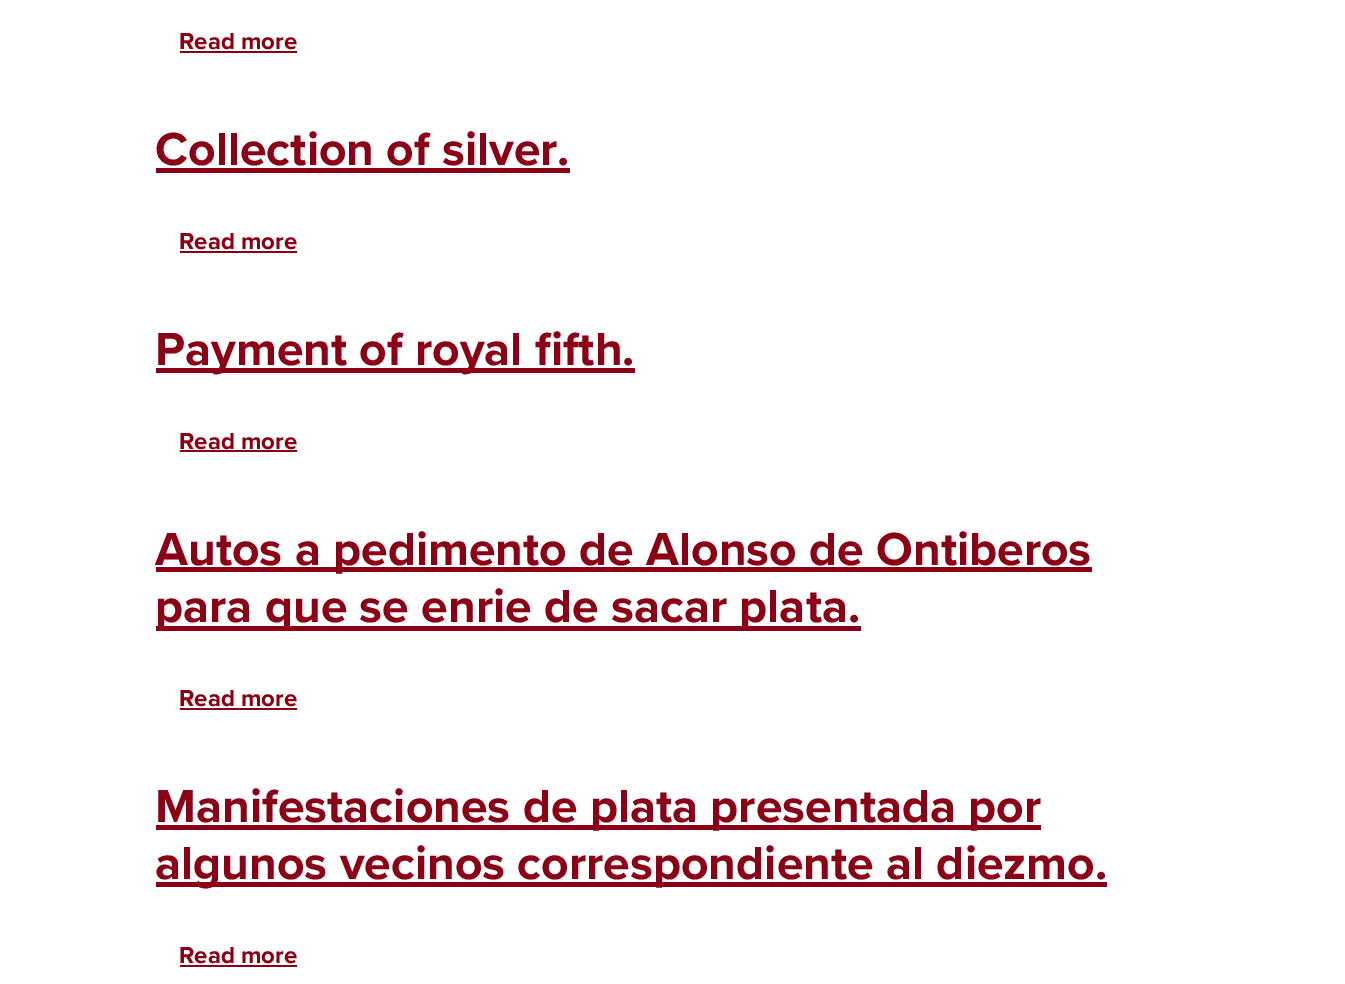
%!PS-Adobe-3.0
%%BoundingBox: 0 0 1345 984
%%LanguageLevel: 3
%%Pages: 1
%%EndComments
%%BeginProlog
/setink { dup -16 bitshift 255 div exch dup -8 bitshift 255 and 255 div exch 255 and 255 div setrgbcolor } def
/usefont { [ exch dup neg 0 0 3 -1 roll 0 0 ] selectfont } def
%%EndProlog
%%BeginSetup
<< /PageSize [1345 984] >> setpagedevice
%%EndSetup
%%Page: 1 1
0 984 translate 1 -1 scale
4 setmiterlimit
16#FFFFFF setink
0 0 1345 984 rectfill
/ProximaNova-Bold 24 usefont
16#8B0015 setink
179 49 moveto (Read more) show
180 51 117 2 rectfill
/ProximaNova-Bold 48 usefont
155 165 moveto (Collection of silver.) show
156 168 414 5 rectfill
/ProximaNova-Bold 24 usefont
179 249 moveto (Read more) show
180 251 117 2 rectfill
156 368 479 5 rectfill
/ProximaNova-Bold 48 usefont
155 365 moveto (Payment of royal fifth.) show
/ProximaNova-Bold 24 usefont
179 449 moveto (Read more) show
180 450 117 2 rectfill
156 567 936 5 rectfill
/ProximaNova-Bold 48 usefont
155 565 moveto (Autos a pedimento de Alonso de Ontiberos) show
156 626 705 5 rectfill
155 622 moveto (para que se enrie de sacar plata.) show
/ProximaNova-Bold 24 usefont
179 706 moveto (Read more) show
180 708 117 2 rectfill
156 825 885 5 rectfill
/ProximaNova-Bold 48 usefont
155 822 moveto (Manifestaciones de plata presentada por) show
156 882 951 5 rectfill
155 879 moveto (algunos vecinos correspondiente al diezmo.) show
/ProximaNova-Bold 24 usefont
179 963 moveto (Read more) show
180 965 117 2 rectfill
showpage
%%EOF
